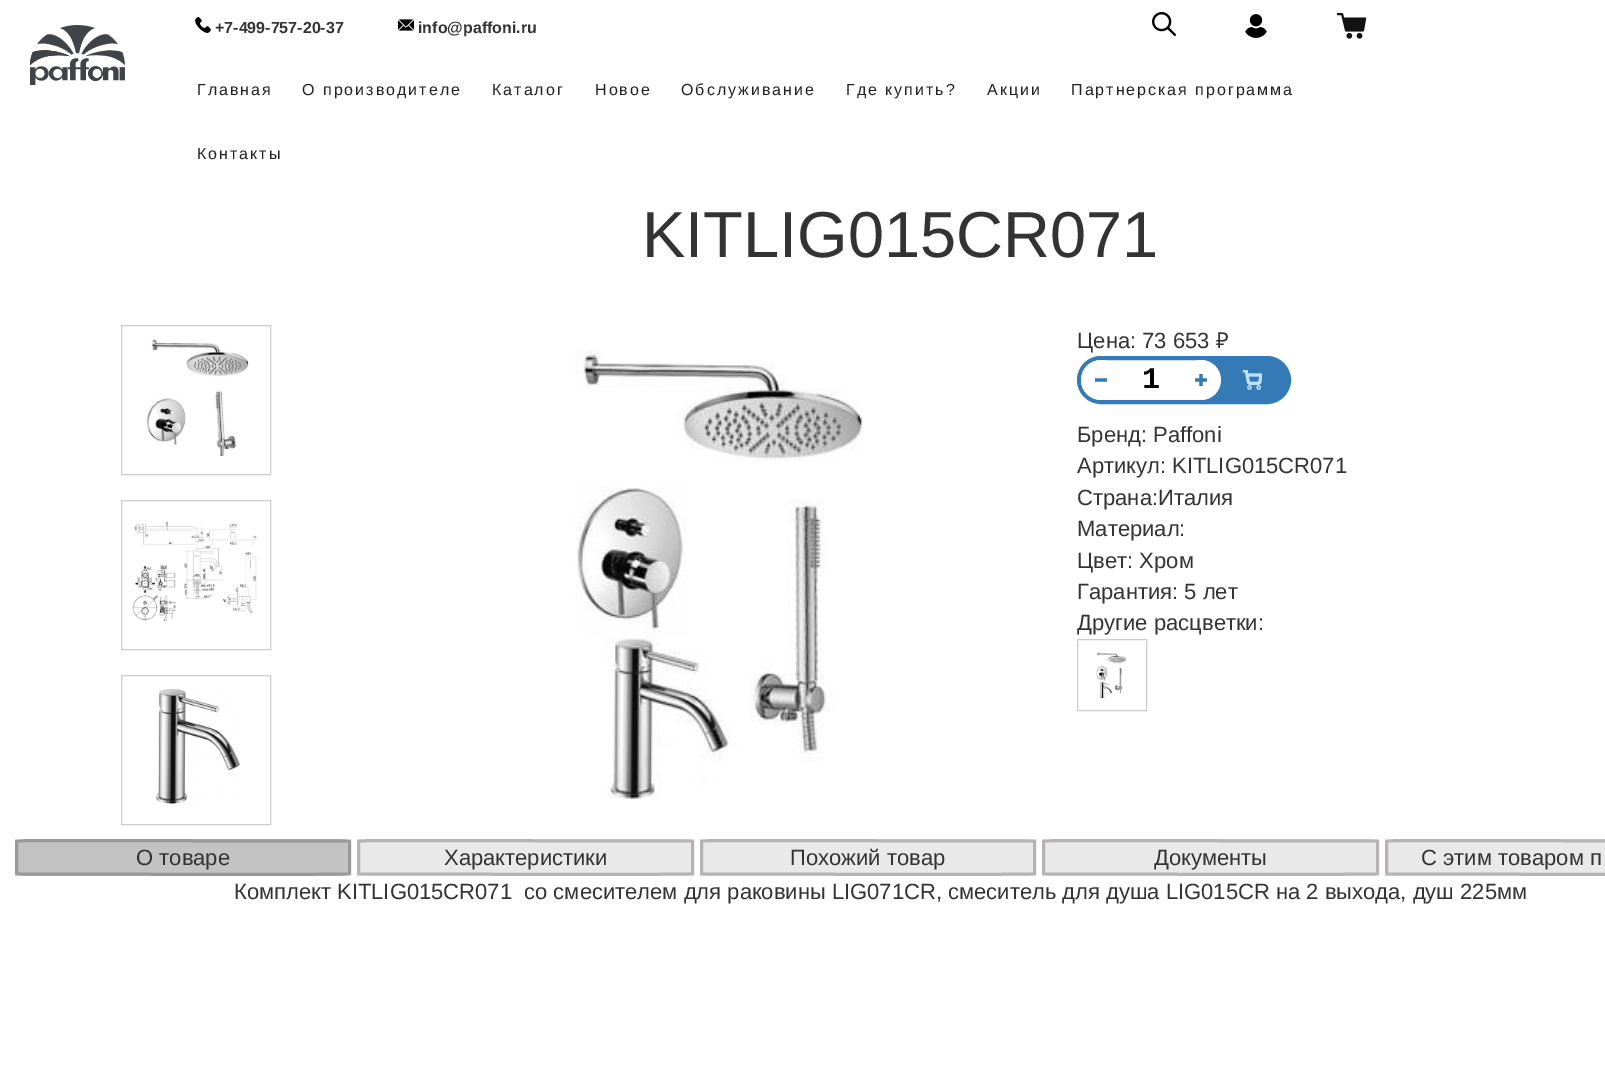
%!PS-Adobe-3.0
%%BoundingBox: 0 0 1605 1070
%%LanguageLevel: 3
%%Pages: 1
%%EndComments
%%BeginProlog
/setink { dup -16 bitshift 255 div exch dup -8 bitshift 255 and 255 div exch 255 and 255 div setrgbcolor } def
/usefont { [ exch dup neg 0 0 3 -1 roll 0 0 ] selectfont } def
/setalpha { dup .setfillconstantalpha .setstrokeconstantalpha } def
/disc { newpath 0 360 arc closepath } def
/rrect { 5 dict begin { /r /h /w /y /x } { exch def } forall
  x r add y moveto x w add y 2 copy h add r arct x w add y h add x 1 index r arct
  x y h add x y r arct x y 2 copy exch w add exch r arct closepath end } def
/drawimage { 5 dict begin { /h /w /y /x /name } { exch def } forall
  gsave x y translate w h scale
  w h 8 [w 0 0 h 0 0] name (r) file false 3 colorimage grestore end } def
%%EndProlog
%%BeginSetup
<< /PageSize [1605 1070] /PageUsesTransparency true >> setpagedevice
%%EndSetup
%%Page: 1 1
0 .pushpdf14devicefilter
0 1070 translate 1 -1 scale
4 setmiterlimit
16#FFFFFF setink
0 0 1605 1070 rectfill
(img1.raw) 30 25 95 60 drawimage
(img2.raw) 195 17 16 16 drawimage
/LiberationSans-Bold 16 usefont
16#333333 setink
215 33 moveto (+7-499-757-20-37) show
(img3.raw) 398 19 16 12 drawimage
418 33 moveto (info@paffoni.ru) show
(img4.raw) 1152 12 24 24 drawimage
(img5.raw) 1245 14 22 24 drawimage
(img6.raw) 1336 13 31 26 drawimage
/LiberationSans-Regular 16 usefont
16#222222 setink
197 95 moveto 2 0 (Главная) ashow
302 95 moveto 2 0 (О производителе) ashow
492 95 moveto 2 0 (Каталог) ashow
595 95 moveto 2 0 (Новое) ashow
681 95 moveto 2 0 (Обслуживание) ashow
846 95 moveto 2 0 (Где купить?) ashow
987 95 moveto 2 0 (Акции) ashow
1071 95 moveto 2 0 (Партнерская программа) ashow
197 159 moveto 2 0 (Контакты) ashow
/LiberationSans-Regular 65 usefont
16#333333 setink
642 257 moveto (KITLIG015CR071) show
16#CCCCCC setink
121.5 325.5 149 149 rectstroke
(img7.raw) 147 339 103 117 drawimage
121.5 500.5 149 149 rectstroke
(img8.raw) 132 521 125 101 drawimage
121.5 675.5 149 149 rectstroke
(img9.raw) 155 688 85 116 drawimage
(img10.raw) 575 350 287 449 drawimage
/LiberationSans-Regular 22 usefont
16#333333 setink
1077 348 moveto (Цена: 73 653) show
/NotoSans-Regular 22 usefont
1216 348 moveto (₽) show
16#337AB7 setink
4 setlinewidth
1079 358 144 44 22 rrect stroke
16#FFFFFF setink
1101 380 20 disc fill
16#337AB7 setink
3.3 setlinewidth
1095 380 moveto 1107 380 lineto stroke
1203 358 moveto 1267 358 lineto 1279 358 1289 368 1289 380 curveto 1289 392 1279 402 1267 402 curveto 1203 402 lineto closepath gsave fill grestore
4 setlinewidth
stroke
(img11.raw) 1242 370 20 20 drawimage
/LiberationMono-Bold 30 usefont
16#000000 setink
1142 388 moveto (1) show
16#FFFFFF setink
1201 380 20 disc fill
16#337AB7 setink
3.3 setlinewidth
1201 374 moveto 1201 386 lineto 1195 380 moveto 1207 380 lineto stroke
/LiberationSans-Regular 22 usefont
16#333333 setink
[
    [(Бренд: Paffoni) 1077 442]
    [(Артикул: KITLIG015CR071) 1077 473]
    [(Страна:Италия) 1077 505]
    [(Материал:) 1077 536]
    [(Цвет: Хром) 1077 568]
    [(Гарантия: 5 лет) 1077 599]
    [(Другие расцветки:) 1077 630]
] { aload pop moveto show } forall
16#CCCCCC setink
1 setlinewidth
1077.5 639.5 69 71 rectstroke
(img12.raw) 1096 652 31 47 drawimage
16#C4C3C3 setink
32 839 moveto 334 839 lineto 343 839 351 840 351 841 curveto 351 874 lineto 351 875 343 876 334 876 curveto 32 876 lineto 23 876 15 875 15 874 curveto 15 841 lineto 15 840 23 839 32 839 curveto closepath fill
0.3 setalpha
16#3A3737 setink
3 setlinewidth
32 840.5 moveto 349.5 841 lineto 349.5 874 lineto 284 874.5 lineto 16.5 874 lineto 16.5 841 lineto closepath stroke
1 setalpha
16#333333 setink
136 865 moveto (О товаре) show
16#EAE9E9 setink
374 839 moveto 677 839 lineto 686 839 694 840 694 841 curveto 694 874 lineto 694 875 686 876 677 876 curveto 374 876 lineto 365 876 357 875 357 874 curveto 357 841 lineto 357 840 365 839 374 839 curveto closepath fill
0.3 setalpha
16#3A3737 setink
374 840.5 moveto 692.5 841 lineto 692.5 874 lineto 626.5 874.5 lineto 358.5 874 lineto 358.5 841 lineto closepath stroke
1 setalpha
16#333333 setink
444 865 moveto (Характеристики) show
16#EAE9E9 setink
717 839 moveto 1019 839 lineto 1028 839 1036 840 1036 841 curveto 1036 874 lineto 1036 875 1028 876 1019 876 curveto 717 876 lineto 708 876 700 875 700 874 curveto 700 841 lineto 700 840 708 839 717 839 curveto closepath fill
0.3 setalpha
16#3A3737 setink
717 840.5 moveto 1034.5 841 lineto 1034.5 874 lineto 969 874.5 lineto 701.5 874 lineto 701.5 841 lineto closepath stroke
1 setalpha
16#333333 setink
790 865 moveto (Похожий товар) show
16#EAE9E9 setink
1059 839 moveto 1362 839 lineto 1371 839 1379 840 1379 841 curveto 1379 874 lineto 1379 875 1371 876 1362 876 curveto 1059 876 lineto 1050 876 1042 875 1042 874 curveto 1042 841 lineto 1042 840 1050 839 1059 839 curveto closepath fill
0.3 setalpha
16#3A3737 setink
1059 840.5 moveto 1377.5 841 lineto 1377.5 874 lineto 1311.5 874.5 lineto 1043.5 874 lineto 1043.5 841 lineto closepath stroke
1 setalpha
16#333333 setink
1154 865 moveto (Документы) show
16#EAE9E9 setink
1402 839 moveto 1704 839 lineto 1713 839 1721 840 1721 841 curveto 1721 874 lineto 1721 875 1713 876 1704 876 curveto 1402 876 lineto 1393 876 1385 875 1385 874 curveto 1385 841 lineto 1385 840 1393 839 1402 839 curveto closepath fill
0.3 setalpha
16#3A3737 setink
1402 840.5 moveto 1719.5 841 lineto 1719.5 874 lineto 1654 874.5 lineto 1386.5 874 lineto 1386.5 841 lineto closepath stroke
1 setalpha
16#333333 setink
1421 865 moveto (С этим товаром п) show
234 899 moveto (Комплект KITLIG015CR071  со смесителем для раковины LIG071CR, смеситель для душа LIG015CR на 2 выхода, душ 225мм) show
.poppdf14devicefilter showpage
%%EOF
